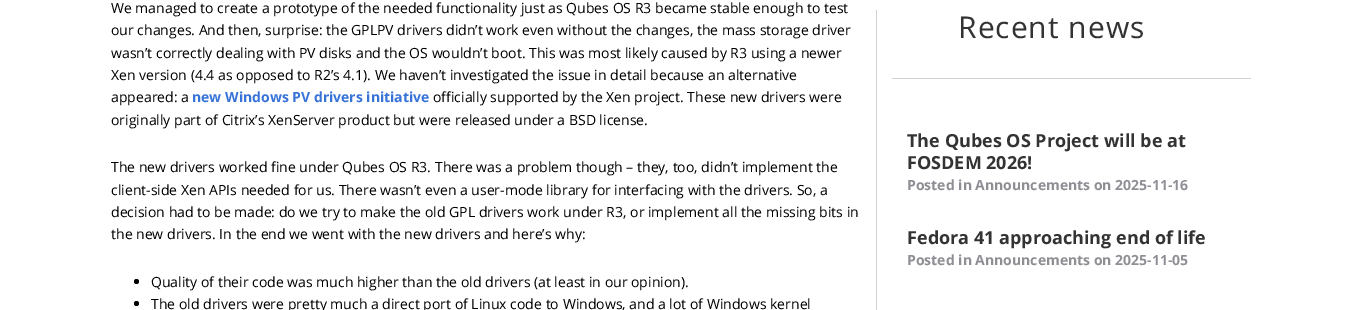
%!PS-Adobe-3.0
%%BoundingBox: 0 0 1361 310
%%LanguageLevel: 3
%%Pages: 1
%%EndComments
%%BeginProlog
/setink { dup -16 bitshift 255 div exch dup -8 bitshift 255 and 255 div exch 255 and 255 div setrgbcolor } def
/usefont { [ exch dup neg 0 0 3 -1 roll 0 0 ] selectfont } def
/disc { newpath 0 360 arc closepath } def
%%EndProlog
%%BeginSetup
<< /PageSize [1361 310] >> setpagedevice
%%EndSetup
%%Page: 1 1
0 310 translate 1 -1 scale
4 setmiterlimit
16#FFFFFF setink
0 0 1361 310 rectfill
/OpenSans-Regular 14 usefont
16#000000 setink
[
    [(We managed to create a prototype of the needed functionality just as Qubes OS R3 became stable enough to test) 111 13]
    [(our changes. And then, surprise: the GPLPV drivers didn’t work even without the changes, the mass storage driver) 111 35]
    [(wasn’t correctly dealing with PV disks and the OS wouldn’t boot. This was most likely caused by R3 using a newer) 111 58]
    [(Xen version \(4.4 as opposed to R2’s 4.1\). We haven’t investigated the issue in detail because an alternative) 111 80]
    [(appeared: a) 111 102]
] { aload pop moveto show } forall
/OpenSans-Bold 14 usefont
16#3874D8 setink
192 102 moveto (new Windows PV drivers initiative) show
/OpenSans-Regular 14 usefont
16#000000 setink
[
    [(officially supported by the Xen project. These new drivers were) 433 102]
    [(originally part of Citrix’s XenServer product but were released under a BSD license.) 111 125]
    [(The new drivers worked fine under Qubes OS R3. There was a problem though – they, too, didn’t implement the) 111 172]
    [(client-side Xen APIs needed for us. There wasn’t even a user-mode library for interfacing with the drivers. So, a) 111 195]
    [(decision had to be made: do we try to make the old GPL drivers work under R3, or implement all the missing bits in) 111 217]
    [(the new drivers. In the end we went with the new drivers and here’s why:) 111 239]
] { aload pop moveto show } forall
136.5 281.5 2.5 disc fill
151 287 moveto (Quality of their code was much higher than the old drivers \(at least in our opinion\).) show
136.5 303.5 2.5 disc fill
151 309 moveto (The old drivers were pretty much a direct port of Linux code to Windows, and a lot of Windows kernel) show
16#D2D2D2 setink
876 10 1 300 rectfill
/OpenSans-Regular 30 usefont
16#333333 setink
958 38 moveto 1 0 (Recent news) ashow
16#D2D2D2 setink
892 78 359 1 rectfill
/OpenSans-Bold 18 usefont
16#333333 setink
907 147 moveto (The Qubes OS Project will be at) show
907 169 moveto (FOSDEM 2026!) show
/OpenSans-Bold 14 usefont
16#8E8E95 setink
907 190 moveto (Posted in Announcements on 2025-11-16) show
/OpenSans-Bold 18 usefont
16#333333 setink
907 244 moveto (Fedora 41 approaching end of life) show
/OpenSans-Bold 14 usefont
16#8E8E95 setink
907 265 moveto (Posted in Announcements on 2025-11-05) show
showpage
%%EOF
